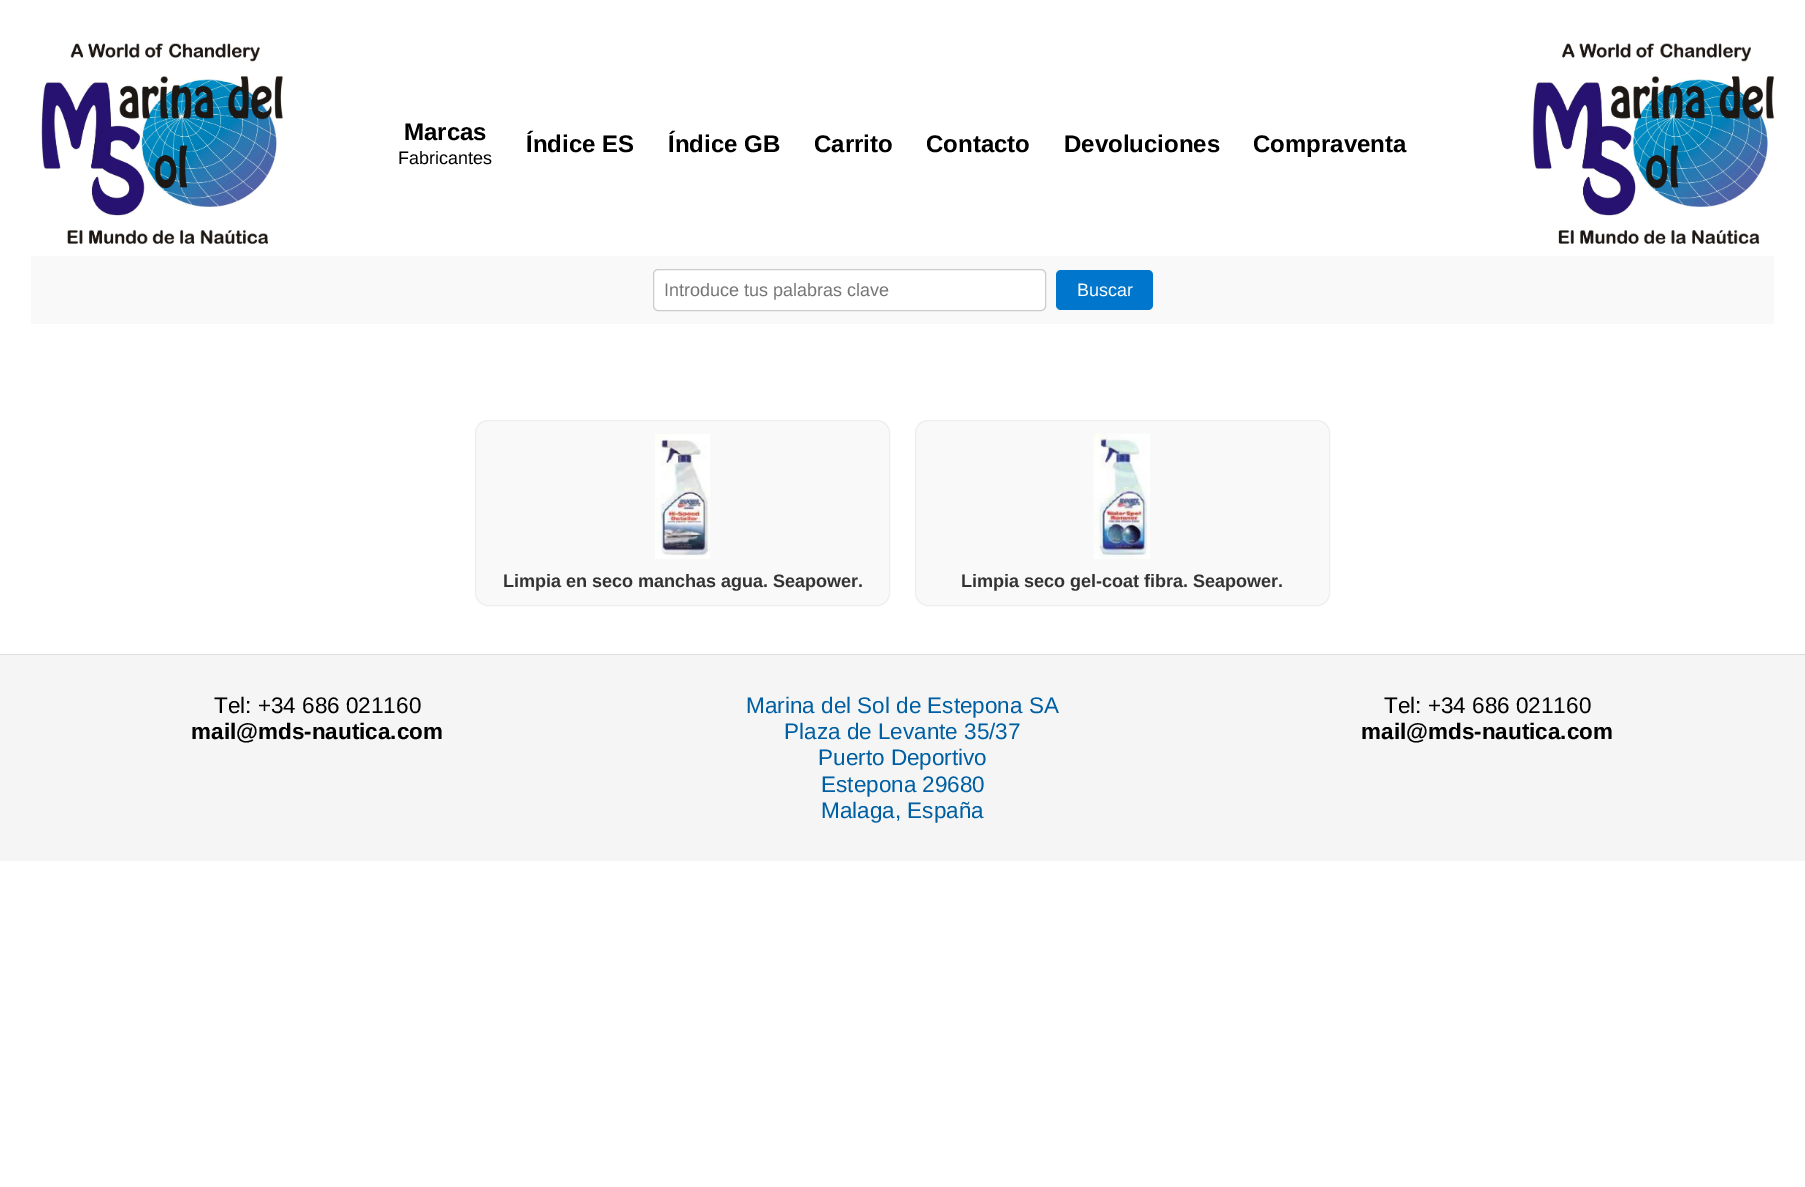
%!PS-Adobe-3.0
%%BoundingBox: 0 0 1805 1187
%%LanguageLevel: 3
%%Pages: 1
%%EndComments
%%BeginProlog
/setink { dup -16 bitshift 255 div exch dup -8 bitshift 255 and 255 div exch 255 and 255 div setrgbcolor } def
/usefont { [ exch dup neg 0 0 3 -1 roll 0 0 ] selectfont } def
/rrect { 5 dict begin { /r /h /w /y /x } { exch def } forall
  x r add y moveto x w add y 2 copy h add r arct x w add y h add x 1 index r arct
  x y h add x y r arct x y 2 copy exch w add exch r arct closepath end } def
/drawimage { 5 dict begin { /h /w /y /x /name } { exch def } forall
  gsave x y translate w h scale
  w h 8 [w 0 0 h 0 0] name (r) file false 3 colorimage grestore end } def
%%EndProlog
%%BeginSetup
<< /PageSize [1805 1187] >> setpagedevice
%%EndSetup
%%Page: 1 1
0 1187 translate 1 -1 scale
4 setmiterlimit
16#FFFFFF setink
0 0 1805 1187 rectfill
(img1.raw) 40 43 243 201 drawimage
/LiberationSans-Bold 24 usefont
16#000000 setink
404 140 moveto (Marcas) show
/LiberationSans-Regular 18 usefont
398 164 moveto (Fabricantes) show
/LiberationSans-Bold 24 usefont
[
    [(Índice ES) 526 152]
    [(Índice GB) 668 152]
    [(Carrito) 814 152]
    [(Contacto) 926 152]
    [(Devoluciones) 1064 152]
    [(Compraventa) 1253 152]
] { aload pop moveto show } forall
(img2.raw) 1531 43 243 201 drawimage
16#F9F9F9 setink
31 256 1743 68 rectfill
16#FFFFFF setink
653.5 269.5 392 41 4.5 rrect gsave fill grestore
16#CCCCCC setink
stroke
/LiberationSans-Regular 18 usefont
16#757575 setink
664 296 moveto (Introduce tus palabras clave) show
16#0077CC setink
1056 270 97 40 5 rrect fill
16#FFFFFF setink
1077 296 moveto (Buscar) show
16#F9F9F9 setink
475.5 420.5 414 185 12.5 rrect gsave fill grestore
16#EEEEEE setink
stroke
(img3.raw) 655 434 55 125 drawimage
/LiberationSans-Bold 18 usefont
16#333333 setink
503 587 moveto (Limpia en seco manchas agua. Seapower.) show
16#F9F9F9 setink
915.5 420.5 414 185 12.5 rrect gsave fill grestore
16#EEEEEE setink
stroke
(img4.raw) 1093 433 57 126 drawimage
16#333333 setink
961 587 moveto (Limpia seco gel-coat fibra. Seapower.) show
16#F5F5F5 setink
0 655 1805 206 rectfill
16#DDDDDD setink
0 654 1805 1 rectfill
/LiberationSans-Regular 22.5 usefont
16#000000 setink
214 713 moveto (Tel: +34 686 021160) show
/LiberationSans-Bold 22.5 usefont
191 739 moveto (mail@mds-nautica.com) show
/LiberationSans-Regular 22.5 usefont
16#005FA3 setink
[
    [(Marina del Sol de Estepona SA) 746 713]
    [(Plaza de Levante 35/37) 784 739]
    [(Puerto Deportivo) 818 765]
    [(Estepona 29680) 821 792]
    [(Malaga, España) 821 818]
] { aload pop moveto show } forall
16#000000 setink
1384 713 moveto (Tel: +34 686 021160) show
/LiberationSans-Bold 22.5 usefont
1361 739 moveto (mail@mds-nautica.com) show
showpage
%%EOF
